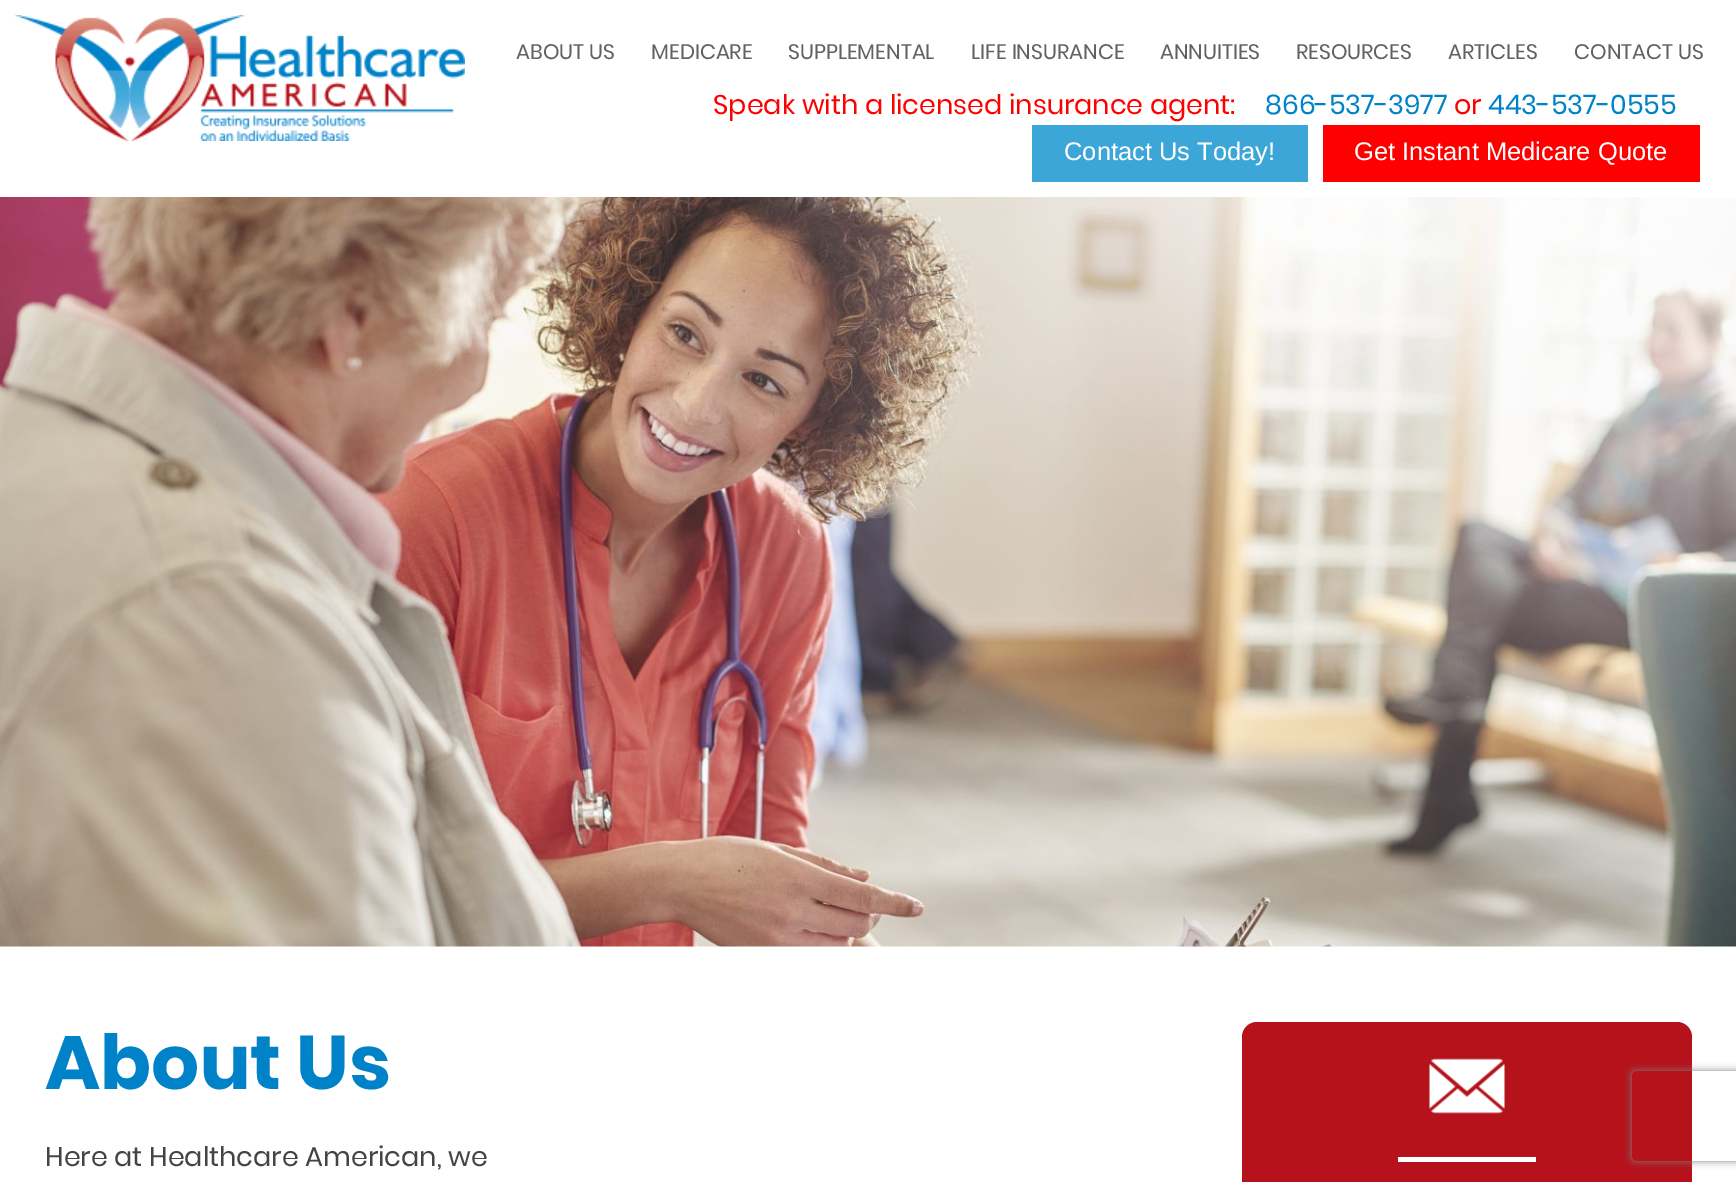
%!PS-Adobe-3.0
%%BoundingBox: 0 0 1736 1182
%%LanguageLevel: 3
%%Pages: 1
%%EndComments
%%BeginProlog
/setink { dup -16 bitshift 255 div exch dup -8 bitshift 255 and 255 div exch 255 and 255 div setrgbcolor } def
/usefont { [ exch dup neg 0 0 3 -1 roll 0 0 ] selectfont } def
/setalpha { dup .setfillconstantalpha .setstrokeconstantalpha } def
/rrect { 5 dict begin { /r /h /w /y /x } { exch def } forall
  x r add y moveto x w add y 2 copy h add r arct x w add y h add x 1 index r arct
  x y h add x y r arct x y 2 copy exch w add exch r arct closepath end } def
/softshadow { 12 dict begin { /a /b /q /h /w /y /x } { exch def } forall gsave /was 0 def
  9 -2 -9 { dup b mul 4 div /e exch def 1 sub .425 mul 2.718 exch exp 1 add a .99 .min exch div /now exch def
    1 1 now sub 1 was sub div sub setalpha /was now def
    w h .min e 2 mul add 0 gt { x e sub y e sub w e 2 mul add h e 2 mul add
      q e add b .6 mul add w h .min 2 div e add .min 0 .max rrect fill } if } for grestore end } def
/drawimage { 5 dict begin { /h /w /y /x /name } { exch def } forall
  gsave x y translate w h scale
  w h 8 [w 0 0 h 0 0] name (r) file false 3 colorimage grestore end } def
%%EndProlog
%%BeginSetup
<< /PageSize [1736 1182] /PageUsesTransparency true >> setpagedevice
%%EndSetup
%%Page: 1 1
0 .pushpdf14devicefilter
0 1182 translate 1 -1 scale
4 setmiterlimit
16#FFFFFF setink
0 0 1736 1182 rectfill
(img1.raw) 15 15 450 126 drawimage
/Poppins-Regular 21 usefont
16#616161 setink
[
    [(ABOUT US) 516 59]
    [(MEDICARE) 651 59]
    [(SUPPLEMENTAL) 788 59]
    [(LIFE INSURANCE) 971 59]
    [(ANNUITIES) 1160 59]
    [(RESOURCES) 1296 59]
    [(ARTICLES) 1448 59]
    [(CONTACT US) 1574 59]
] { aload pop moveto show } forall
/Poppins-Regular 27 usefont
16#FF0000 setink
713 114 moveto (Speak with a licensed insurance agent:) show
16#0082C8 setink
1265 114 moveto (866-537-3977) show
16#FF0000 setink
1454 114 moveto (or) show
16#0082C8 setink
1488 114 moveto (443-537-0555) show
16#3CA6D8 setink
1032 125 276 57 rectfill
/LiberationSans-Regular 25.5 usefont
16#FFFFFF setink
1064 160 moveto (Contact Us Today!) show
16#FF0000 setink
1323 125 377 57 rectfill
16#FFFFFF setink
1354 160 moveto (Get Instant Medicare Quote) show
(img2.raw) 0 197 1736 750 drawimage
/Poppins-Bold 75.5 usefont
16#0082C8 setink
45 1089 moveto (About Us) show
/Poppins-Regular 27 usefont
16#444444 setink
45 1166 moveto (Here at Healthcare American, we) show
16#B5121B setink
1242 1022 450 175 15 rrect fill
(img3.raw) 1429 1058 76 56 drawimage
16#FFFFFF setink
1398 1157 138 5 rectfill
gsave
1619 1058 moveto 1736 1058 lineto 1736 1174 lineto 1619 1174 lineto closepath 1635 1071 moveto 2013 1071 lineto 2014.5 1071 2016 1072.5 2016 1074 curveto 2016 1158 lineto 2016 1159.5 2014.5 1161 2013 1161 curveto 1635 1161 lineto 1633.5 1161 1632 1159.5 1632 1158 curveto 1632 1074 lineto 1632 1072.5 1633.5 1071 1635 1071 curveto closepath eoclip newpath
16#808080 setink
1632 1071 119 90 3 4 1 softshadow
grestore
.poppdf14devicefilter showpage
%%EOF
